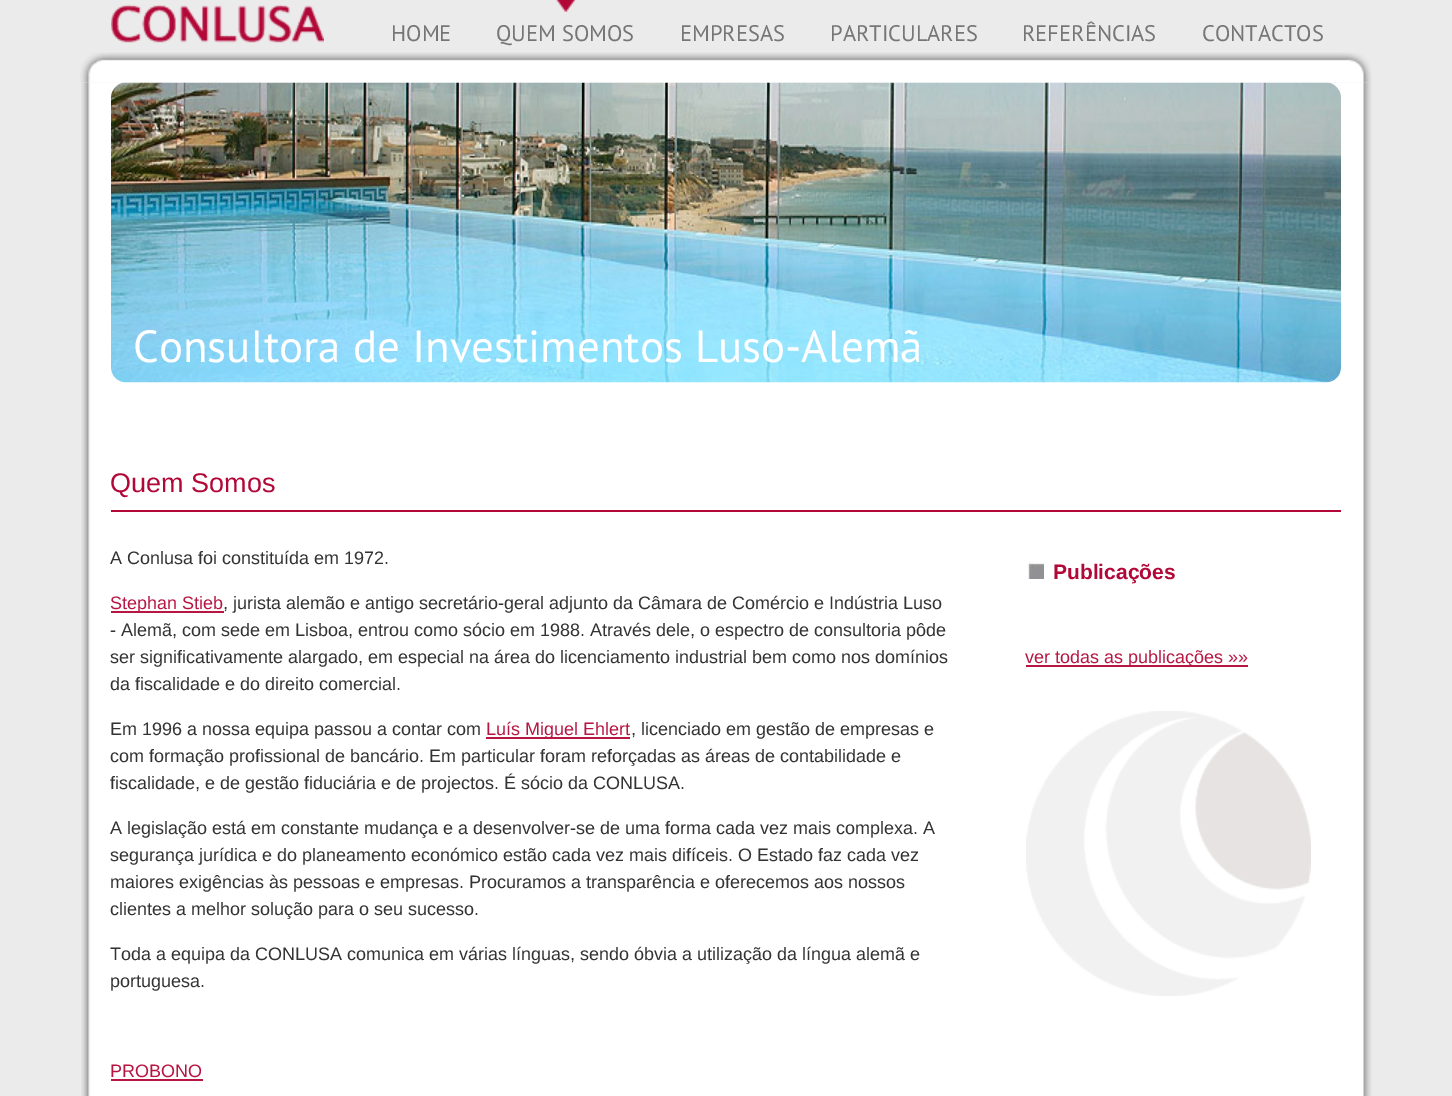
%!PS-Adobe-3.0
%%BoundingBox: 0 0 1452 1096
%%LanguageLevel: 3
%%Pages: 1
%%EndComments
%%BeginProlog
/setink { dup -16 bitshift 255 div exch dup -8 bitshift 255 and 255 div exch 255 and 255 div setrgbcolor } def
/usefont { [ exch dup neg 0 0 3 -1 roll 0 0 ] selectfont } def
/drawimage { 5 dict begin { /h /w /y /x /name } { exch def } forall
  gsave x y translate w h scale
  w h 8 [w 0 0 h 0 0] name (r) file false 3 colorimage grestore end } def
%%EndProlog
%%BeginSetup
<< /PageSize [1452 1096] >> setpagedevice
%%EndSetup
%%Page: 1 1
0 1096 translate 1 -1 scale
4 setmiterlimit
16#EBEBEB setink
0 0 1452 1096 rectfill
(img1.raw) 111 4 213 39 drawimage
/PTSans-Regular 22.5 usefont
16#767676 setink
391 41 moveto (HOME) show
(img2.raw) 556 0 20 12 drawimage
[
    [(QUEM SOMOS) 496 41]
    [(EMPRESAS) 680 41]
    [(PARTICULARES) 830 41]
    [(REFERÊNCIAS) 1022 41]
    [(CONTACTOS) 1202 41]
] { aload pop moveto show } forall
(img3.raw) 80 52 1292 31 drawimage
(img4.raw) 81 82 1291 1014 drawimage
(img5.raw) 111 82 1230 301 drawimage
/PTSans-Regular 45 usefont
16#FFFFFF setink
133 362 moveto (Consultora de Investimentos Luso-Alemã) show
16#B20838 setink
111 510 1230 2 rectfill
/LiberationSans-Regular 27 usefont
110 492 moveto (Quem Somos) show
/LiberationSans-Regular 18 usefont
16#333333 setink
110 564 moveto (A Conlusa foi constituída em 1972.) show
16#B71643 setink
111 611 113 2 rectfill
110 609 moveto (Stephan Stieb) show
16#333333 setink
[
    [(, jurista alemão e antigo secretário-geral adjunto da Câmara de Comércio e Indústria Luso) 223 609]
    [(- Alemã, com sede em Lisboa, entrou como sócio em 1988. Através dele, o espectro de consultoria pôde) 110 636]
    [(ser significativamente alargado, em especial na área do licenciamento industrial bem como nos domínios) 110 663]
    [(da fiscalidade e do direito comercial.) 110 690]
    [(Em 1996 a nossa equipa passou a contar com) 110 735]
] { aload pop moveto show } forall
16#B71643 setink
486 737 144 2 rectfill
486 735 moveto (Luís Miguel Ehlert) show
16#333333 setink
[
    [(, licenciado em gestão de empresas e) 631 735]
    [(com formação profissional de bancário. Em particular foram reforçadas as áreas de contabilidade e) 110 762]
    [(fiscalidade, e de gestão fiduciária e de projectos. É sócio da CONLUSA.) 110 789]
    [(A legislação está em constante mudança e a desenvolver-se de uma forma cada vez mais complexa. A) 110 834]
    [(segurança jurídica e do planeamento económico estão cada vez mais difíceis. O Estado faz cada vez) 110 861]
    [(maiores exigências às pessoas e empresas. Procuramos a transparência e oferecemos aos nossos) 110 888]
    [(clientes a melhor solução para o seu sucesso.) 110 915]
    [(Toda a equipa da CONLUSA comunica em várias línguas, sendo óbvia a utilização da língua alemã e) 110 960]
    [(portuguesa.) 110 987]
] { aload pop moveto show } forall
16#B71643 setink
110 1077 moveto (PROBONO) show
111 1079 92 2 rectfill
(img6.raw) 1027 562 17 17 drawimage
/LiberationSans-Bold 21 usefont
16#B20838 setink
1053 579 moveto (Publicações) show
16#B71643 setink
1026 665 222 2 rectfill
/LiberationSans-Regular 18 usefont
1025 663 moveto (ver todas as publicações »») show
(img7.raw) 1026 711 285 285 drawimage
showpage
%%EOF
